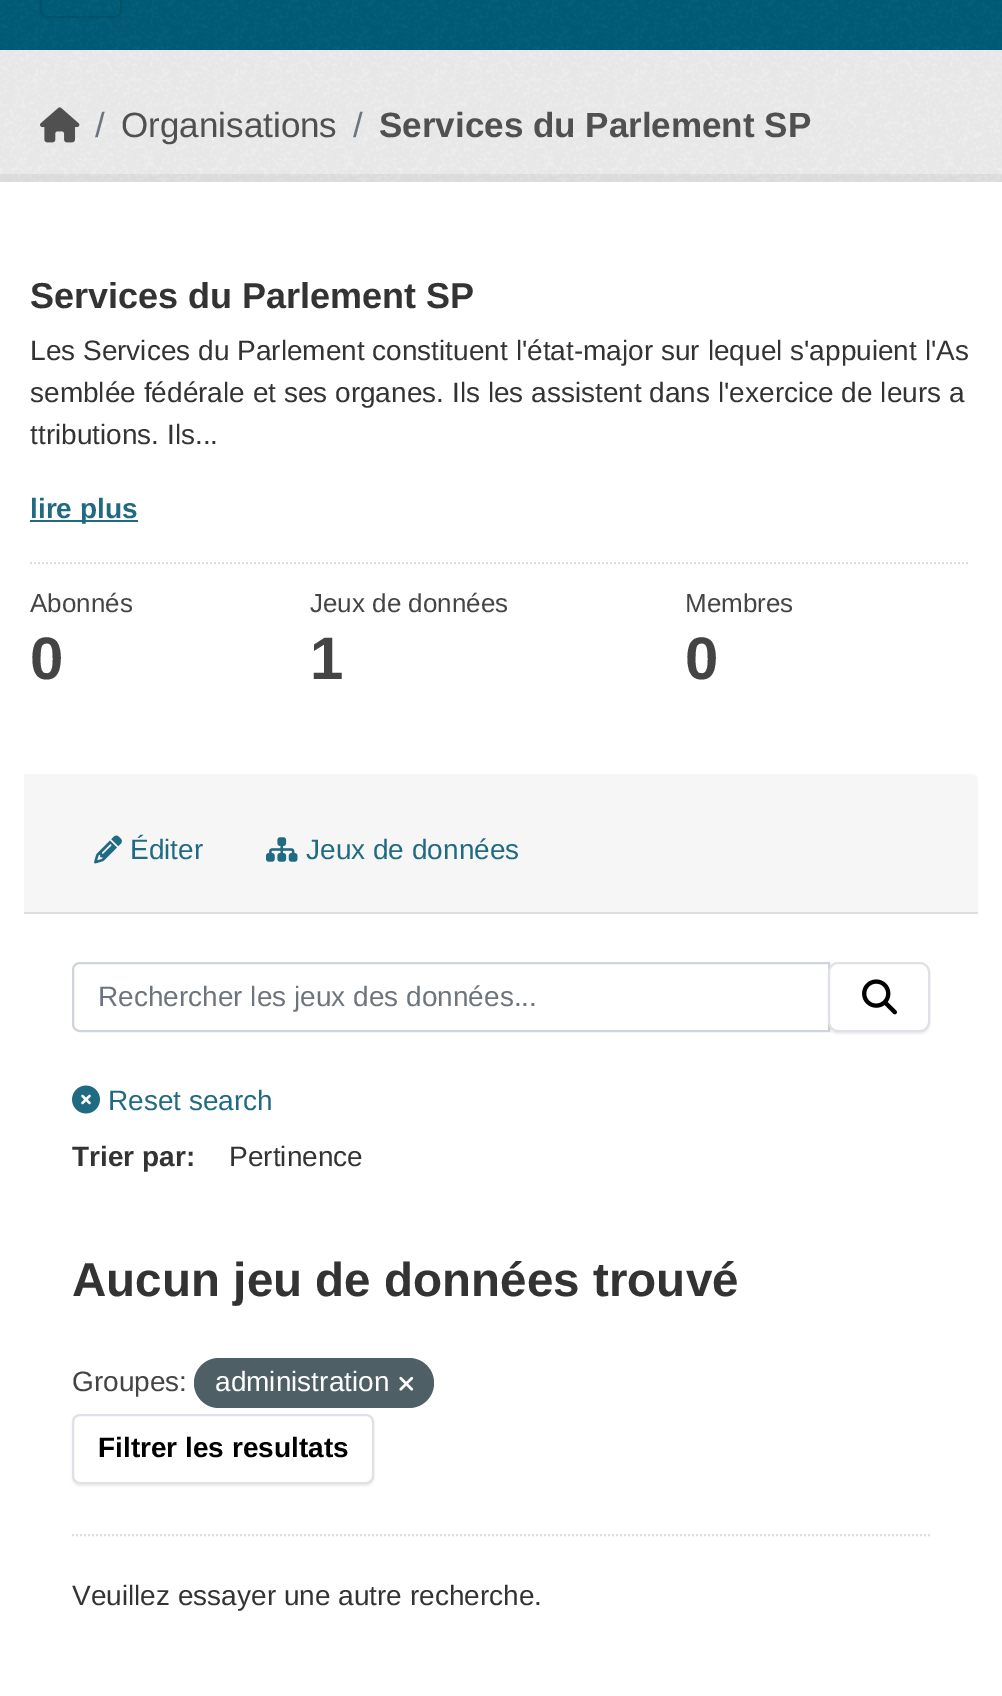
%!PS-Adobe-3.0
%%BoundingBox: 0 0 1002 1696
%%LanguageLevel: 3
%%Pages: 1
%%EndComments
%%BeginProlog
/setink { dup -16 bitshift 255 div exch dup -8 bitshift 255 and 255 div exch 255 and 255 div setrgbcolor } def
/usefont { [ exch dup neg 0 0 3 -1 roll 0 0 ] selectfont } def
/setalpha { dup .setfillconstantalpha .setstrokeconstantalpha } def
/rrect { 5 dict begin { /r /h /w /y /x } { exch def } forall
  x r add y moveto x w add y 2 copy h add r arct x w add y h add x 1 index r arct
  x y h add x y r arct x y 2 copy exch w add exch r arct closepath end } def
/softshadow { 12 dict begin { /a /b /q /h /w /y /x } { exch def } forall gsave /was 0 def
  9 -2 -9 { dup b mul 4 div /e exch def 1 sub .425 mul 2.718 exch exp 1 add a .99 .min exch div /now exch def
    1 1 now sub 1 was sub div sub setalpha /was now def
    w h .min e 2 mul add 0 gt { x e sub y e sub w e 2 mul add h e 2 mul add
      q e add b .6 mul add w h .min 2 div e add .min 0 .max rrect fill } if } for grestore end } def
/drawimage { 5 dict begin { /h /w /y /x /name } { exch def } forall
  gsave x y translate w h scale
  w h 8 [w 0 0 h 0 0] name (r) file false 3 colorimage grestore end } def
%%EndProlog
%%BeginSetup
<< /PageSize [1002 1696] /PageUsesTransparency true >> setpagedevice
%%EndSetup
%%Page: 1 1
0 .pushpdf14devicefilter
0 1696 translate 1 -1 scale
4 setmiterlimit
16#005D7A setink
0 0 1002 1696 rectfill
(img1.raw) 0 0 1002 50 drawimage
0.1 setalpha
16#000000 setink
2 setlinewidth
41 -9 80 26 7 rrect stroke
1 setalpha
16#EEEEEE setink
0 50 1002 132 rectfill
(img2.raw) 0 50 1002 132 drawimage
(img3.raw) 40 107 40 36 drawimage
/LiberationSans-Regular 35 usefont
16#6C757D setink
95 137 moveto (/) show
16#505050 setink
121 137 moveto (Organisations) show
16#6C757D setink
353 137 moveto (/) show
/LiberationSans-Bold 35 usefont
16#505050 setink
379 137 moveto (Services du Parlement SP) show
0.05 setalpha
16#000000 setink
8 setlinewidth
-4 178 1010 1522 rectstroke
1 setalpha
16#FFFFFF setink
0 182 1002 1514 rectfill
/LiberationSans-Bold 36 usefont
16#333333 setink
30 308 moveto (Services du Parlement SP) show
/LiberationSans-Regular 28 usefont
[
    [(Les Services du Parlement constituent l'état-major sur lequel s'appuient l'As) 30 360]
    [(semblée fédérale et ses organes. Ils les assistent dans l'exercice de leurs a) 30 402]
    [(ttributions. Ils...) 30 444]
] { aload pop moveto show } forall
16#206B82 setink
30 520 108 2 rectfill
/LiberationSans-Bold 28 usefont
30 518 moveto (lire plus) show
16#DDDDDD setink
2 setlinewidth
[2 2] 0 setdash
30 563 moveto 970 563 lineto stroke
/LiberationSans-Regular 26 usefont
16#444444 setink
30 612 moveto (Abonnés) show
/LiberationSans-Bold 60 usefont
30 679 moveto (0) show
/LiberationSans-Regular 26 usefont
310 612 moveto (Jeux de données) show
/LiberationSans-Bold 60 usefont
310 679 moveto (1) show
/LiberationSans-Regular 26 usefont
685 612 moveto (Membres) show
/LiberationSans-Bold 60 usefont
685 679 moveto (0) show
16#F6F6F6 setink
24 774 moveto 972 774 lineto 975.5 774 978 776.5 978 780 curveto 978 914 lineto 24 914 lineto closepath fill
16#DDDDDD setink
24 912 954 2 rectfill
(img4.raw) 94 835 28 29 drawimage
/LiberationSans-Regular 28 usefont
16#206B82 setink
130 859 moveto (Éditer) show
(img5.raw) 266 837 32 25 drawimage
306 859 moveto (Jeux de données) show
16#DDDDDD setink
72 1535 moveto 930 1535 lineto stroke
16#CED4DA setink
[] 0 setdash
80 963 moveto 829 963 lineto 829 1031 lineto 80 1031 lineto 76 1031 73 1028 73 1024 curveto 73 970 lineto 73 966 76 963 80 963 curveto closepath stroke
16#6C757D setink
98 1006 moveto (Rechercher les jeux des données...) show
16#000000 setink
828 964 102 70 10 1 0.07 softshadow
16#FFFFFF setink
829 963 100 68 9 rrect gsave fill grestore
16#DEE2E6 setink
stroke
(img6.raw) 862 979 35 36 drawimage
(img7.raw) 72 1085 28 29 drawimage
16#206B82 setink
108 1110 moveto (Reset search) show
/LiberationSans-Bold 28 usefont
16#333333 setink
72 1166 moveto (Trier par:) show
/LiberationSans-Regular 28 usefont
229 1166 moveto (Pertinence) show
/LiberationSans-Bold 47.6 usefont
72 1296 moveto (Aucun jeu de données trouvé) show
/LiberationSans-Regular 28 usefont
16#444444 setink
72 1391 moveto (Groupes:) show
16#4E5F65 setink
194 1358 240 50 25 rrect fill
16#FFFFFF setink
215 1391 moveto (administration) show
(img8.raw) 399 1376 15 15 drawimage
16#000000 setink
72 1416 302 70 8 1 0.07 softshadow
16#FFFFFF setink
73 1415 300 68 7 rrect gsave fill grestore
16#DEE2E6 setink
stroke
/LiberationSans-Bold 28 usefont
16#000000 setink
98 1457 moveto (Filtrer les resultats) show
/LiberationSans-Regular 28 usefont
16#333333 setink
72 1605 moveto (Veuillez essayer une autre recherche.) show
.poppdf14devicefilter showpage
%%EOF
